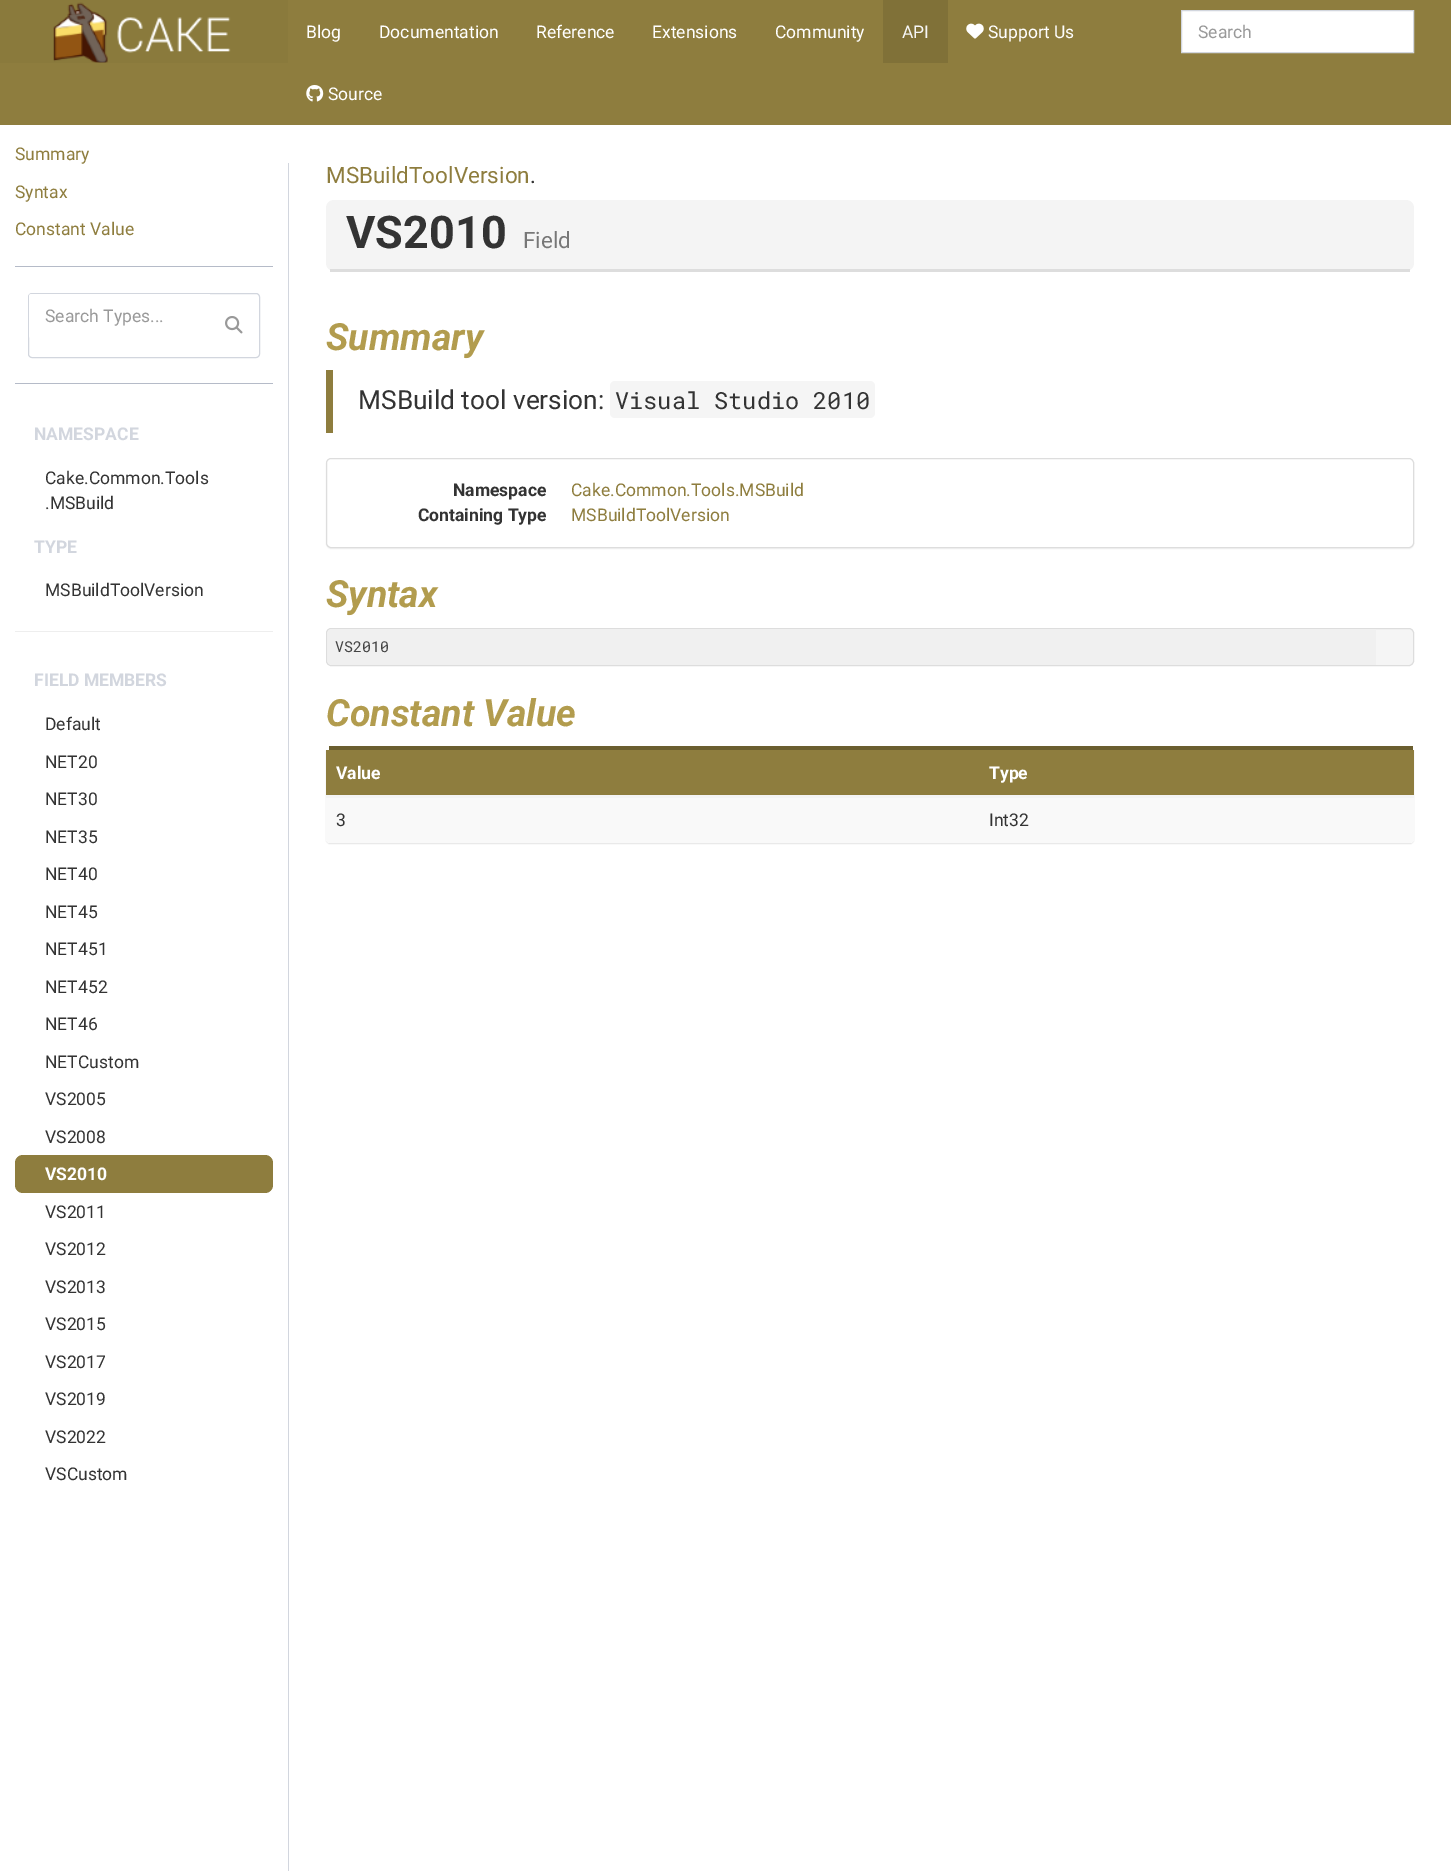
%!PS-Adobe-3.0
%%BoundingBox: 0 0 1451 1871
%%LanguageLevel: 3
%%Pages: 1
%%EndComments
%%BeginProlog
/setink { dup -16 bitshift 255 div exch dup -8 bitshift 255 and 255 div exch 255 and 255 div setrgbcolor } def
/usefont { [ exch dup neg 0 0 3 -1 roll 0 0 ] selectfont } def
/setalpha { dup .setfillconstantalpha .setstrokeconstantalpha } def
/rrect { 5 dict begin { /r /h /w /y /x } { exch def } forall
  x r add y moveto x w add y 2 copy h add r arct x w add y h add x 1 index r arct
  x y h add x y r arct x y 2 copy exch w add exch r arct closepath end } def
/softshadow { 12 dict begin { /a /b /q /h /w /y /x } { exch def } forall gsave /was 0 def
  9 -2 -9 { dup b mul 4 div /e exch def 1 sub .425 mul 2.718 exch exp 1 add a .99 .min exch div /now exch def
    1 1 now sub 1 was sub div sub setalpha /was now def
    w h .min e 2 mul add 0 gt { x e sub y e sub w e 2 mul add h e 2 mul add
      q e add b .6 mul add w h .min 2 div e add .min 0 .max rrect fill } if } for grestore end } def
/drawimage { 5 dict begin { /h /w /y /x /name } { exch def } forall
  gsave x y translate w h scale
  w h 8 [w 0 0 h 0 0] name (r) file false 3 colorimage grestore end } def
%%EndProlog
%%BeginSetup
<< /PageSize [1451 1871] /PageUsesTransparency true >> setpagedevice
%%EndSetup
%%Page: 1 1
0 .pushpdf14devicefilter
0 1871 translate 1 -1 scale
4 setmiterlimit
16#FFFFFF setink
0 0 1451 1871 rectfill
16#8E7D3E setink
0 0 1451 125 rectfill
16#8A7A3C setink
0 0 288 63 rectfill
(img1.raw) 53 2 178 61 drawimage
/Roboto-Regular 17.5 usefont
16#FFFFFF setink
[
    [(Blog) 306 38]
    [(Documentation) 379 38]
    [(Reference) 536 38]
    [(Extensions) 652 38]
    [(Community) 775 38]
] { aload pop moveto show } forall
16#807138 setink
883 0 65 63 rectfill
16#F6F6F6 setink
902 38 moveto (API) show
(img2.raw) 966 23 18 16 drawimage
16#FFFFFF setink
988 38 moveto (Support Us) show
1181.5 10.5 moveto 1413.5 10.5 lineto 1413.5 52.5 lineto 1181.5 52.5 lineto closepath gsave fill grestore
16#D2D6DE setink
stroke
16#999999 setink
1198 38 moveto (Search) show
(img3.raw) 306 85 18 17 drawimage
16#FFFFFF setink
328 100 moveto (Source) show
16#8E7D3E setink
[
    [(Summary) 15 160]
    [(Syntax) 15 198]
    [(Constant Value) 15 235]
] { aload pop moveto show } forall
16#B5BBC8 setink
15 266 258 1 rectfill
16#D2D6DE setink
28.5 293.5 231 64 3.5 rrect stroke
16#FFFFFF setink
31.5 294 moveto 210 294 lineto 210 338 lineto 31.5 338 lineto 30 338 29 337 29 335.5 curveto 29 296.5 lineto 29 295 30 294 31.5 294 curveto closepath fill
16#999999 setink
45 322 moveto (Search Types...) show
(img4.raw) 225 316 18 18 drawimage
16#B5BBC8 setink
15 383 258 1 rectfill
/Roboto-Bold 17.5 usefont
16#D2D6DE setink
34 440 moveto (NAMESPACE) show
/Roboto-Regular 17.5 usefont
16#333333 setink
45 484 moveto (Cake.Common.Tools) show
45 509 moveto (.MSBuild) show
/Roboto-Bold 17.5 usefont
16#D2D6DE setink
34 553 moveto (TYPE) show
/Roboto-Regular 17.5 usefont
16#333333 setink
45 596 moveto (MSBuildToolVersion) show
16#EEEEEE setink
15 631 258 1 rectfill
/Roboto-Bold 17.5 usefont
16#D2D6DE setink
34 686 moveto (FIELD MEMBERS) show
/Roboto-Regular 17.5 usefont
16#333333 setink
[
    [(Default) 45 730]
    [(NET20) 45 768]
    [(NET30) 45 805]
    [(NET35) 45 843]
    [(NET40) 45 880]
    [(NET45) 45 918]
    [(NET451) 45 955]
    [(NET452) 45 993]
    [(NET46) 45 1030]
    [(NETCustom) 45 1068]
    [(VS2005) 45 1105]
    [(VS2008) 45 1143]
] { aload pop moveto show } forall
16#8E7D3E setink
15 1155 258 38 8 rrect fill
/Roboto-Bold 17.5 usefont
16#FFFFFF setink
45 1180 moveto (VS2010) show
/Roboto-Regular 17.5 usefont
16#333333 setink
[
    [(VS2011) 45 1218]
    [(VS2012) 45 1255]
    [(VS2013) 45 1293]
    [(VS2015) 45 1330]
    [(VS2017) 45 1368]
    [(VS2019) 45 1405]
    [(VS2022) 45 1443]
    [(VSCustom) 45 1480]
] { aload pop moveto show } forall
16#D2D6DE setink
288 163 1 1708 rectfill
/Roboto-Regular 22.5 usefont
16#8E7D3E setink
326 183 moveto (MSBuildToolVersion) show
16#333333 setink
530 183 moveto (.) show
16#F4F4F4 setink
326 200 1088 71 8 rrect fill
16#DDDDDD setink
330 269 1080 3 rectfill
/Roboto-Bold 45 usefont
16#333333 setink
346 248 moveto (VS2010) show
/Roboto-Regular 22.5 usefont
16#777777 setink
523 248 moveto (Field) show
/Roboto-BoldItalic 37.5 usefont
16#B29C4E setink
326 350 moveto (Summary) show
16#8E7D3E setink
326 370 7 63 rectfill
/Roboto-Regular 26.25 usefont
16#333333 setink
358 409 moveto (MSBuild tool version:) show
16#F5F5F5 setink
610 381 265 37 5 rrect fill
/RobotoMono-Regular 23.6 usefont
16#333333 setink
615 409 moveto (Visual Studio 2010) show
16#000000 setink
326 459 1088 90 5 0.5 0.05 softshadow
16#FFFFFF setink
326.5 458.5 1087 89 4.5 rrect gsave fill grestore
16#DDDDDD setink
stroke
/Roboto-Bold 17.5 usefont
16#333333 setink
453 496 moveto (Namespace) show
/Roboto-Regular 17.5 usefont
16#8E7D3E setink
571 496 moveto (Cake.Common.Tools.MSBuild) show
/Roboto-Bold 17.5 usefont
16#333333 setink
418 521 moveto (Containing Type) show
/Roboto-Regular 17.5 usefont
16#8E7D3E setink
571 521 moveto (MSBuildToolVersion) show
/Roboto-BoldItalic 37.5 usefont
16#B29C4E setink
326 607 moveto (Syntax) show
16#F5F5F5 setink
326.5 628.5 1087 37 4.5 rrect gsave fill grestore
16#DDDDDD setink
stroke
16#F0F0F0 setink
332 629 moveto 1376 629 lineto 1376 665 lineto 332 665 lineto 330 665 328 663 328 661 curveto 328 633 lineto 328 631 330 629 332 629 curveto closepath fill
/RobotoMono-Regular 15 usefont
16#444444 setink
335 652 moveto (VS2010) show
/Roboto-BoldItalic 37.5 usefont
16#B29C4E setink
326 726 moveto (Constant Value) show
16#000000 setink
326 748 1088 96 4 0.5 0.1 softshadow
16#FFFFFF setink
326 746 1088 97 4 rrect fill
16#6B5E2F setink
329 746 1084 4 rectfill
16#8E7D3E setink
326 750 1088 45 rectfill
/Roboto-Bold 17.5 usefont
16#FFFFFF setink
336 779 moveto (Value) show
16#F9F9F9 setink
326 796 moveto 1414 796 lineto 1414 839 lineto 1414 841 1412 843 1410 843 curveto 330 843 lineto 328 843 326 841 326 839 curveto closepath fill
16#F4F4F4 setink
326 795 1088 3 rectfill
16#FFFFFF setink
989 779 moveto (Type) show
/Roboto-Regular 17.5 usefont
16#333333 setink
336 826 moveto (3) show
989 826 moveto (Int32) show
.poppdf14devicefilter showpage
%%EOF
